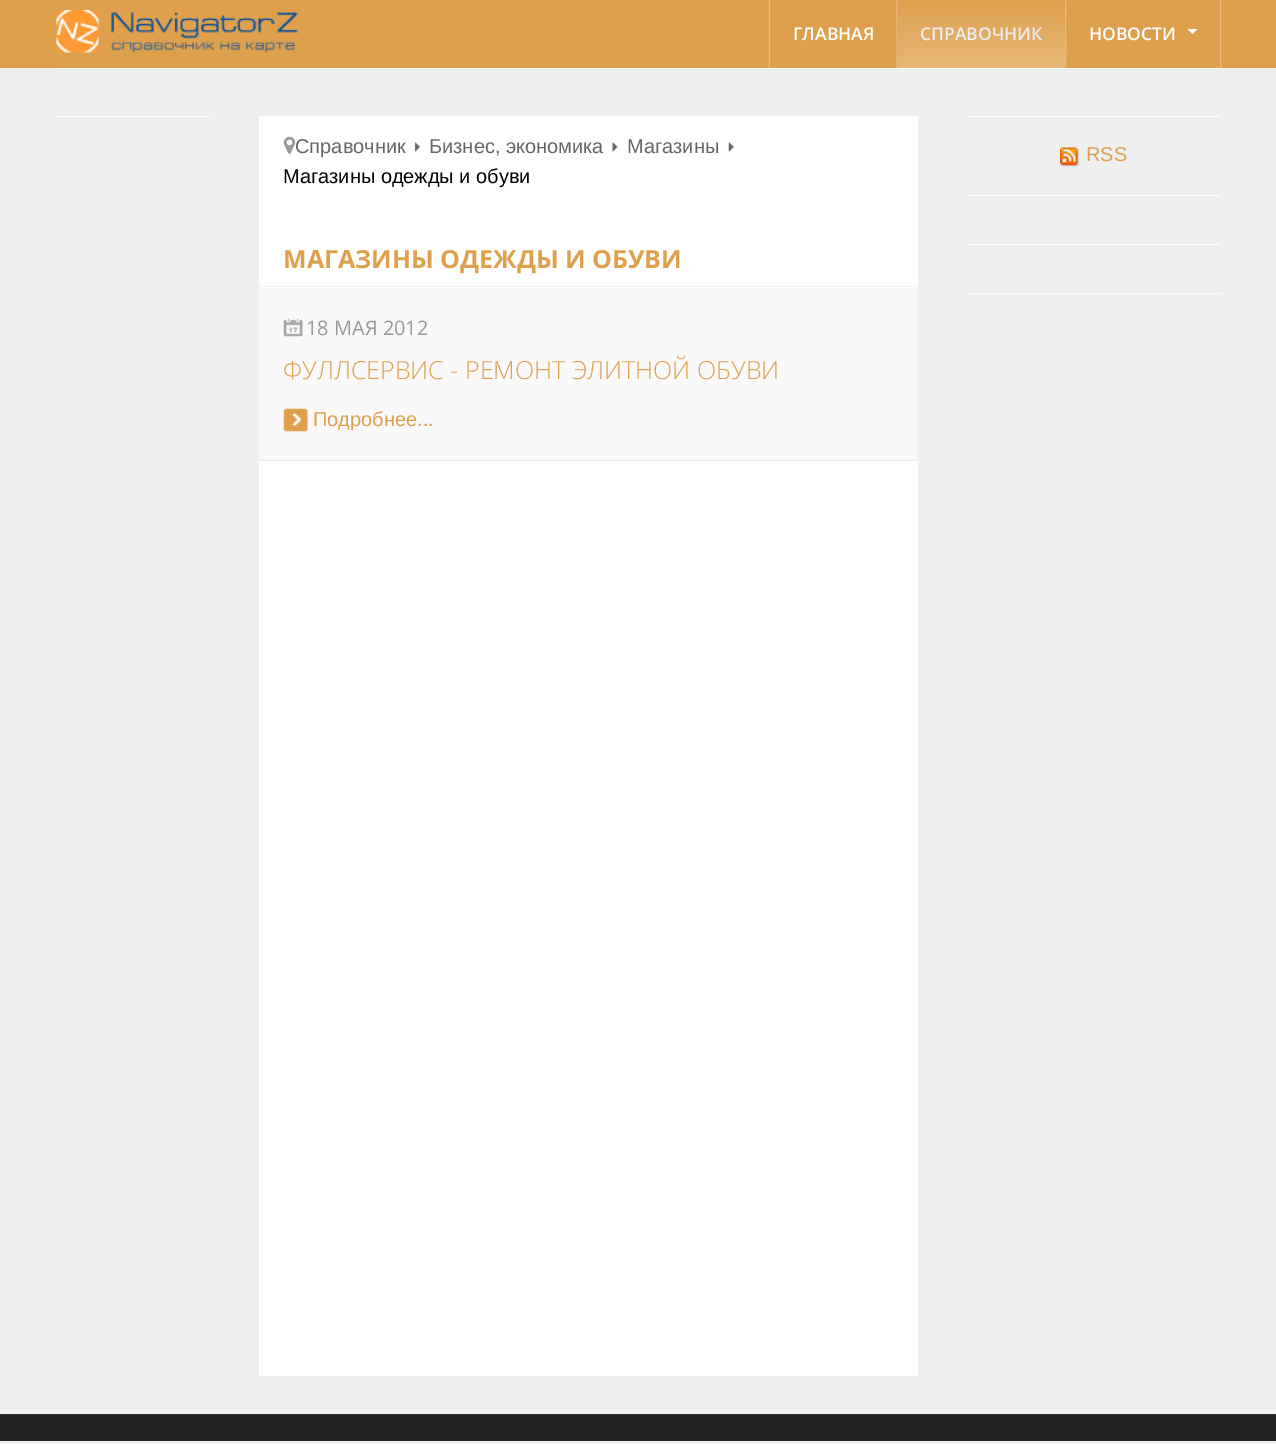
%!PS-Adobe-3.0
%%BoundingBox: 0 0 1276 1444
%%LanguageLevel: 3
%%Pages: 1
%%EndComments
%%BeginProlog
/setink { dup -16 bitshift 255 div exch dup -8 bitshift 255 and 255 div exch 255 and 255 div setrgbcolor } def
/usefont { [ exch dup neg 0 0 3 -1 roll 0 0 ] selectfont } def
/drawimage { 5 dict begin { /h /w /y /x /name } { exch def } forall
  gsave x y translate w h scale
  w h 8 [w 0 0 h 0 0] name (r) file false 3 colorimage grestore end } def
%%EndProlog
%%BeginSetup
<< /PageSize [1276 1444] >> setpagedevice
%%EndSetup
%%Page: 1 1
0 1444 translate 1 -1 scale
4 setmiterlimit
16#EFEFEF setink
0 0 1276 1444 rectfill
16#DEA04D setink
0 0 1276 68 rectfill
(img1.raw) 56 9 242 44 drawimage
(img2.raw) 768 0 2 68 drawimage
(img3.raw) 896 0 2 68 drawimage
/OpenSans-SemiBold 17.5 usefont
16#FFFFFF setink
793 40 moveto (ГЛАВНАЯ) show
(img4.raw) 1065 0 2 68 drawimage
gsave 898 4 moveto 1065 4 lineto 1065 68 lineto 898 68 lineto closepath clip newpath
<< /ShadingType 2 /ColorSpace /DeviceRGB /Coords [981 0 981 68] /Extend [true true] /Function << /FunctionType 2 /Domain [0 1] /C0 [0.871 0.627 0.302] /C1 [0.902 0.718 0.471] /N 1 >> >> shfill grestore
16#EEEEEE setink
920 40 moveto (СПРАВОЧНИК) show
(img4.raw) 1220 0 2 68 drawimage
16#FFFFFF setink
1089 40 moveto (НОВОСТИ) show
1187.5 29 moveto 1197.5 29 lineto 1192.5 34 lineto closepath fill
[
    [56 68 1165 1 16#FFFFFF]
    [56 116 153 1 16#FFFFFF]
    [259 116 659 1260 16#FFFFFF]
] { aload pop setink rectfill } forall
(img5.raw) 283 136 13 18 drawimage
/LiberationSans-Regular 20 usefont
16#666666 setink
295 153 moveto (Справочник) show
(img6.raw) 414 142 7 10 drawimage
429 153 moveto (Бизнес, экономика) show
(img7.raw) 612 142 6 10 drawimage
627 153 moveto (Магазины) show
(img8.raw) 728 142 6 10 drawimage
16#000000 setink
283 183 moveto (Магазины одежды и обуви) show
16#F1F1F1 setink
259 286 659 1 rectfill
/OpenSans-Bold 25 usefont
16#DEA04D setink
283 268 moveto (МАГАЗИНЫ ОДЕЖДЫ И ОБУВИ) show
16#F9F9F9 setink
259 288 659 172 rectfill
16#EAEAEA setink
259 460 659 1 rectfill
(img9.raw) 283 318 20 19 drawimage
/OpenSans-Regular 20 usefont
16#999999 setink
306 335 moveto (18 МАЯ 2012) show
/OpenSans-Light 25 usefont
16#DEA04D setink
283 379 moveto (ФУЛЛСЕРВИС - РЕМОНТ ЭЛИТНОЙ ОБУВИ) show
(img10.raw) 283 408 25 24 drawimage
/LiberationSans-Regular 20 usefont
313 426 moveto (Подробнее...) show
16#FFFFFF setink
968 116 253 1 rectfill
(img11.raw) 1060 147 20 20 drawimage
16#DEA04D setink
1086 161 moveto (RSS) show
[
    [968 195 253 1 16#FFFFFF]
    [968 244 253 1 16#FFFFFF]
    [968 293 253 1 16#FFFFFF]
    [0 1415 1276 26 16#222222]
    [0 1414 1276 1 16#2F2F2F]
] { aload pop setink rectfill } forall
showpage
%%EOF
